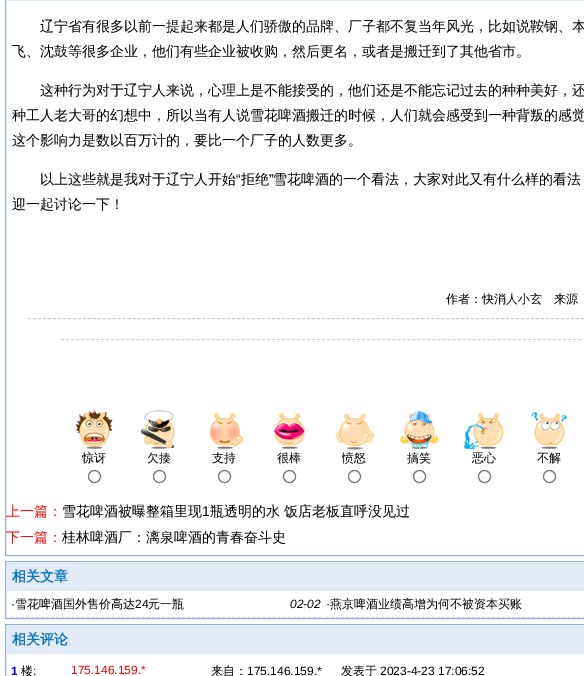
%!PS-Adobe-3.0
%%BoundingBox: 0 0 584 676
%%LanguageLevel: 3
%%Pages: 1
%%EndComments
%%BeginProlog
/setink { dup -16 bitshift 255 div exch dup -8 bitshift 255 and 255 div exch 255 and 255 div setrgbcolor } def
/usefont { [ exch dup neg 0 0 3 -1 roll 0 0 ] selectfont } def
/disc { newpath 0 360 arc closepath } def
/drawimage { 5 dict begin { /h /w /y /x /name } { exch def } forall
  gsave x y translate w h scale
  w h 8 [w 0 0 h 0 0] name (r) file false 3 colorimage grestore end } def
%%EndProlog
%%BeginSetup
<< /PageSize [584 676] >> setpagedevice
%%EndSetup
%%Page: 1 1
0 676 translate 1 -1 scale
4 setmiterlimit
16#FFFFFF setink
0 0 584 676 rectfill
16#92B0DD setink
5.5 -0.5 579 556 rectstroke
/WenQuanYiZenHei-Medium 14 usefont
16#000000 setink
[
    [(辽宁省有很多以前一提起来都是人们骄傲的品牌、厂子都不复当年风光，比如说鞍钢、本) 40 31]
    [(飞、沈鼓等很多企业，他们有些企业被收购，然后更名，或者是搬迁到了其他省市。) 12 56]
    [(这种行为对于辽宁人来说，心理上是不能接受的，他们还是不能忘记过去的种种美好，还) 40 95]
    [(种工人老大哥的幻想中，所以当有人说雪花啤酒搬迁的时候，人们就会感受到一种背叛的感觉) 12 120]
    [(这个影响力是数以百万计的，要比一个厂子的人数更多。) 12 145]
    [(以上这些就是我对于辽宁人开始) 40 184]
] { aload pop moveto show } forall
/LiberationSans-Regular 14 usefont
236 184 moveto (“) show
/WenQuanYiZenHei-Medium 14 usefont
241 184 moveto (拒绝) show
/LiberationSans-Regular 14 usefont
269 184 moveto (”) show
/WenQuanYiZenHei-Medium 14 usefont
273 184 moveto (雪花啤酒的一个看法，大家对此又有什么样的看法) show
12 209 moveto (迎一起讨论一下！) show
16#CCCCCC setink
[3 1.98] 0 setdash
28 318.5 moveto 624 318.5 lineto stroke
/WenQuanYiZenHei-Medium 12 usefont
16#000000 setink
446 303 moveto (作者：快消人小玄　来源) show
16#CCCCCC setink
[3 2.02] 0 setdash
61 339.5 moveto 581 339.5 lineto stroke
(img1.raw) 75 410 38 39 drawimage
(img2.raw) 140 410 35 39 drawimage
(img3.raw) 209 413 35 37 drawimage
(img4.raw) 273 413 33 37 drawimage
(img5.raw) 335 413 39 37 drawimage
(img6.raw) 400 411 39 39 drawimage
(img7.raw) 464 413 40 37 drawimage
(img8.raw) 530 411 37 39 drawimage
16#000000 setink
[
    [(惊讶) 82 462]
    [(欠揍) 147 462]
    [(支持) 212 462]
    [(很棒) 277 462]
    [(愤怒) 342 462]
    [(搞笑) 407 462]
    [(恶心) 472 462]
    [(不解) 537 462]
] { aload pop moveto show } forall
16#767676 setink
[] 0 setdash
94.5 476.5 6 disc stroke
159.5 476.5 6 disc stroke
224.5 476.5 6 disc stroke
289.5 476.5 6 disc stroke
354.5 476.5 6 disc stroke
419.5 476.5 6 disc stroke
484.5 476.5 6 disc stroke
549.5 476.5 6 disc stroke
/WenQuanYiZenHei-Medium 14 usefont
16#FF0000 setink
6 516 moveto (上一篇：) show
16#000000 setink
62 516 moveto (雪花啤酒被曝整箱里现) show
/LiberationSans-Regular 14 usefont
202 516 moveto (1) show
/WenQuanYiZenHei-Medium 14 usefont
210 516 moveto (瓶透明的水 饭店老板直呼没见过) show
16#FF0000 setink
6 542 moveto (下一篇：) show
16#000000 setink
62 542 moveto (桂林啤酒厂：漓泉啤酒的青春奋斗史) show
16#92B0DD setink
5.5 561.5 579 57 rectstroke
16#E2EAF8 setink
7 563 577 28 rectfill
/WenQuanYiZenHei-Bold 14 usefont
16#0E78BE setink
12 581 moveto (相关文章) show
16#CCCCCC setink
[3 2.03] 0 setdash
11 617.5 moveto 321 617.5 lineto stroke
/LiberationSans-Regular 12 usefont
16#000000 setink
11 608 moveto (·) show
/WenQuanYiZenHei-Medium 12 usefont
15 608 moveto (雪花啤酒国外售价高达) show
/LiberationSans-Regular 12 usefont
135 608 moveto (24) show
/WenQuanYiZenHei-Medium 12 usefont
148 608 moveto (元一瓶) show
/LiberationSans-Italic 12 usefont
290 608 moveto (02-02) show
16#CCCCCC setink
326 617.5 moveto 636 617.5 lineto stroke
/LiberationSans-Regular 12 usefont
16#000000 setink
326 608 moveto (·) show
/WenQuanYiZenHei-Medium 12 usefont
330 608 moveto (燕京啤酒业绩高增为何不被资本买账) show
16#92B0DD setink
[] 0 setdash
5.5 624.5 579 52 rectstroke
16#E2EAF8 setink
7 626 577 28 rectfill
/WenQuanYiZenHei-Bold 14 usefont
16#0E78BE setink
12 644 moveto (相关评论) show
/LiberationSans-Bold 12 usefont
16#0000FF setink
11 675 moveto (1) show
/WenQuanYiZenHei-Medium 12 usefont
16#000000 setink
21 675 moveto (楼) show
/LiberationSans-Regular 12 usefont
33 675 moveto (:) show
16#FF0000 setink
71 674 moveto (175.146.159.*) show
/WenQuanYiZenHei-Medium 12 usefont
16#000000 setink
211 675 moveto (来自：) show
/LiberationSans-Regular 12 usefont
247 675 moveto (175.146.159.*) show
/WenQuanYiZenHei-Medium 12 usefont
341 675 moveto (发表于) show
/LiberationSans-Regular 12 usefont
380 675 moveto (2023-4-23 17:06:52) show
showpage
%%EOF
